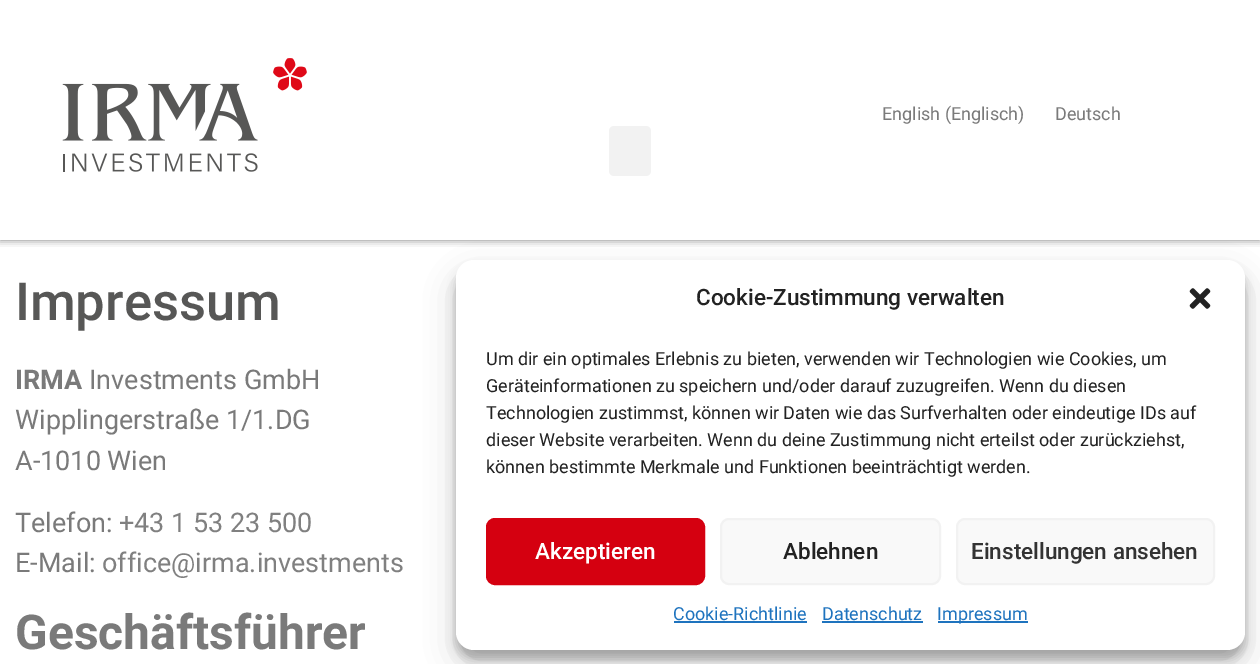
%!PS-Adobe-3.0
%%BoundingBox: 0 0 1260 664
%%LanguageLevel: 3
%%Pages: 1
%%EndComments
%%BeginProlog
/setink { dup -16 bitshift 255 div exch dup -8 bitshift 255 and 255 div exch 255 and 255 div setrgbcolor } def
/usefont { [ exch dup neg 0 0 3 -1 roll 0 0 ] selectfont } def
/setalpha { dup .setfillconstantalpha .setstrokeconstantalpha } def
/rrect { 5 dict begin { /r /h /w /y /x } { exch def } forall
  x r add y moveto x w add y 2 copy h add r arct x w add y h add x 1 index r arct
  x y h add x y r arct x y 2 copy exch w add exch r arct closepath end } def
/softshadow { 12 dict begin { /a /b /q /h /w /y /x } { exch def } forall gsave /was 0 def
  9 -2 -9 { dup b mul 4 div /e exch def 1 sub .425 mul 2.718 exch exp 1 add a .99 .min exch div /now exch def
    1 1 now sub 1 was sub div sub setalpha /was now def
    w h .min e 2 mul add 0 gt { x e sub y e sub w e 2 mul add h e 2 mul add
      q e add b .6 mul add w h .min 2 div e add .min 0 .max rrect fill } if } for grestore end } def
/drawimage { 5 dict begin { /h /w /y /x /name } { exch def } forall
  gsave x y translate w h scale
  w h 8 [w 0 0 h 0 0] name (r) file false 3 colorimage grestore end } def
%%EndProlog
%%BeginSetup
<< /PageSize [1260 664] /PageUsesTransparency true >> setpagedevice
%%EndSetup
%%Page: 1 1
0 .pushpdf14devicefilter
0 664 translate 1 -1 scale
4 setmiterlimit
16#FFFFFF setink
0 0 1260 664 rectfill
gsave
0 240 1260 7 rectclip
16#000000 setink
0 0 1260 240 0 4 0.5 softshadow
grestore
(img1.raw) 273 58 34 33 drawimage
(img2.raw) 62 83 196 89 drawimage
/Roboto-Regular 18 usefont
16#7A7A7A setink
882 120 moveto (English \(Englisch\)) show
1055 120 moveto (Deutsch) show
16#F2F2F2 setink
609 126 42 50 5 rrect fill
/Roboto-Medium 52.5 usefont
16#575756 setink
15 320 moveto (Impressum) show
/Roboto-Bold 27 usefont
16#7A7A7A setink
15 389 moveto (IRMA) show
/Roboto-Regular 27 usefont
[
    [(Investments GmbH) 89 389]
    [(Wipplingerstraße 1/1.DG) 15 429]
    [(A-1010 Wien) 15 470]
    [(Telefon:) 15 532]
] { aload pop moveto show } forall
16#808080 setink
119 532 moveto (+43 1 53 23 500) show
16#7A7A7A setink
15 572 moveto (E-Mail:) show
16#808080 setink
102 572 moveto (office@irma.investments) show
/Roboto-Bold 48 usefont
16#7A7A7A setink
15 649 moveto (Geschäftsführer) show
16#000000 setink
456 269 789 390 18 4.5 0.23 softshadow
456 275 789 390 18 15 0.19 softshadow
16#FFFFFF setink
456 260 789 390 18 rrect fill
/Roboto-Medium 22.5 usefont
16#222222 setink
696 305 moveto (Cookie-Zustimmung verwalten) show
(img3.raw) 1189 288 22 21 drawimage
/Roboto-Regular 18 usefont
[
    [(Um dir ein optimales Erlebnis zu bieten, verwenden wir Technologien wie Cookies, um) 486 365]
    [(Geräteinformationen zu speichern und/oder darauf zuzugreifen. Wenn du diesen) 486 392]
    [(Technologien zustimmst, können wir Daten wie das Surfverhalten oder eindeutige IDs auf) 486 419]
    [(dieser Website verarbeiten. Wenn du deine Zustimmung nicht erteilst oder zurückziehst,) 486 446]
    [(können bestimmte Merkmale und Funktionen beeinträchtigt werden.) 486 473]
] { aload pop moveto show } forall
16#D50010 setink
487 519 217 65 8 rrect gsave fill grestore
2 setlinewidth
stroke
/Roboto-Medium 22.5 usefont
16#FFFFFF setink
535 559 moveto (Akzeptieren) show
16#F9F9F9 setink
721 519 219 65 8 rrect gsave fill grestore
16#F2F2F2 setink
stroke
16#222222 setink
783 559 moveto (Ablehnen) show
16#F9F9F9 setink
957 519 257 65 8 rrect gsave fill grestore
16#F2F2F2 setink
stroke
16#333333 setink
971 559 moveto (Einstellungen ansehen) show
/Roboto-Regular 18 usefont
16#1E73BE setink
673 620 moveto (Cookie-Richtlinie) show
674 621 133 2 rectfill
822 620 moveto (Datenschutz) show
822 621 101 2 rectfill
938 621 90 2 rectfill
937 620 moveto (Impressum) show
.poppdf14devicefilter showpage
%%EOF
